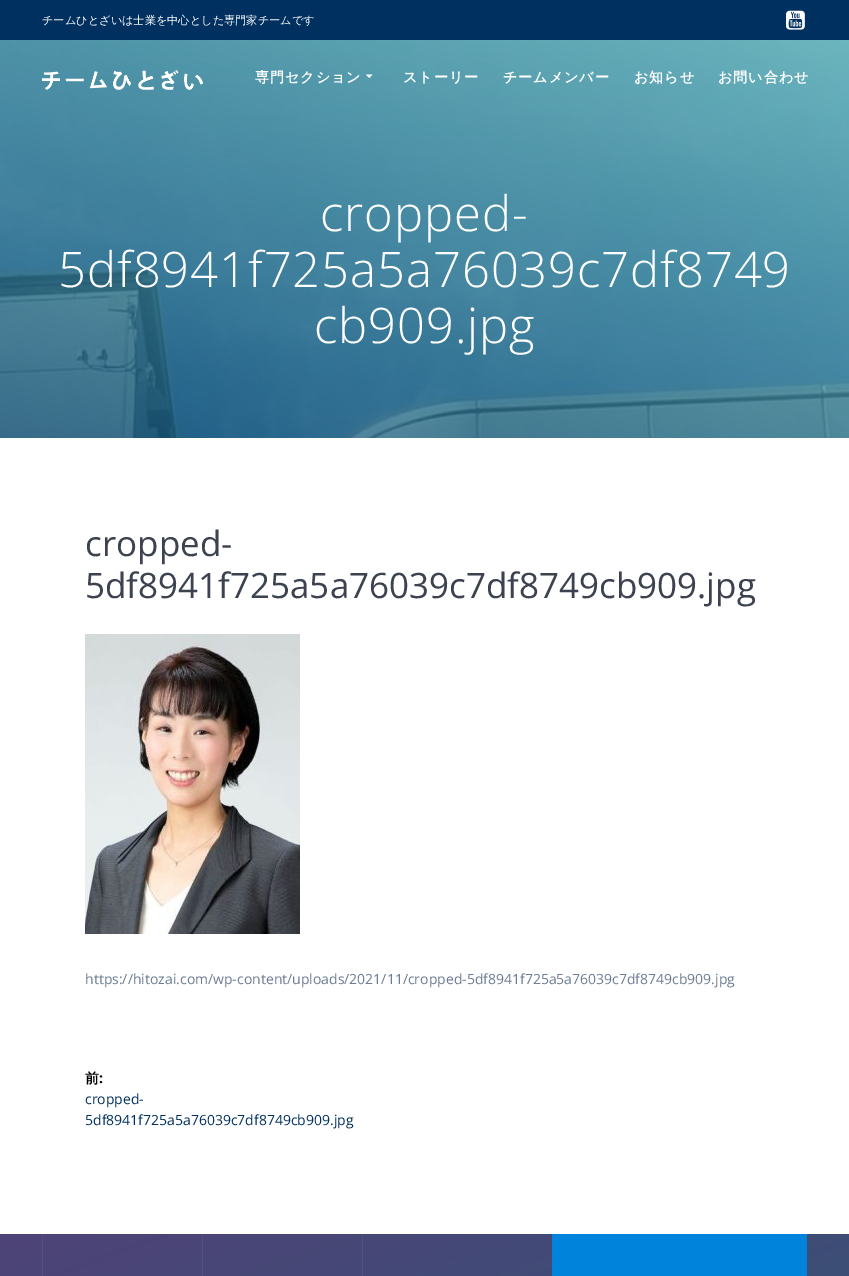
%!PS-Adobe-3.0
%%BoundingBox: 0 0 849 1276
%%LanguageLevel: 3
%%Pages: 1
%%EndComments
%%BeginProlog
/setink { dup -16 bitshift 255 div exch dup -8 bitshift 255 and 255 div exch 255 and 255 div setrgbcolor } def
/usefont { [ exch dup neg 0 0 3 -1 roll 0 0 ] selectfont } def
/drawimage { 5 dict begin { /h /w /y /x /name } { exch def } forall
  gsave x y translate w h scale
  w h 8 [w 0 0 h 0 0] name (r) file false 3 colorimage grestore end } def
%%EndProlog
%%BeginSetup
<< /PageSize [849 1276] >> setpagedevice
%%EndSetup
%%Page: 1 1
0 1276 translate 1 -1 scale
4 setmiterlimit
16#FFFFFF setink
0 0 849 1276 rectfill
16#00305F setink
0 0 849 40 rectfill
/WenQuanYiZenHei-Medium 11.2 usefont
16#FFFFFF setink
42 24 moveto (チームひとざいは士業を中心とした専門家チームです) show
(img1.raw) 786 10 19 20 drawimage
(img4.raw) 0 40 849 398 drawimage
(img2.raw) 42 70 161 20 drawimage
/WenQuanYiZenHei-Bold 14 usefont
255 82 moveto 1 0 (専門セクション) ashow
(img3.raw) 366 74 7 4 drawimage
403 82 moveto 1 0 (ストーリー) ashow
503 82 moveto 1 0 (チームメンバー) ashow
634 82 moveto 1 0 (お知らせ) ashow
718 82 moveto 1 0 (お問い合わせ) ashow
/OpenSans-Light 49 usefont
320 231 moveto 0.9 0 (cropped-) ashow
58 287 moveto 0.9 0 (5df8941f725a5a76039c7df8749) ashow
314 343 moveto 0.9 0 (cb909.jpg) ashow
/OpenSans-Regular 35 usefont
16#3C424F setink
85 556 moveto (cropped-) show
85 598 moveto (5df8941f725a5a76039c7df8749cb909.jpg) show
(img5.raw) 85 634 215 300 drawimage
/OpenSans-Regular 14 usefont
16#6B7C93 setink
85 984 moveto (https://hitozai.com/wp-content/uploads/2021/11/cropped-5df8941f725a5a76039c7df8749cb909.jpg) show
/WenQuanYiZenHei-Bold 14 usefont
16#000000 setink
85 1083 moveto (前) show
/OpenSans-Bold 14 usefont
99 1083 moveto (:) show
/OpenSans-Regular 14 usefont
16#00305F setink
85 1104 moveto (cropped-) show
85 1125 moveto (5df8941f725a5a76039c7df8749cb909.jpg) show
gsave 0 1234 moveto 849 1234 lineto 849 1276 lineto 0 1276 lineto closepath clip newpath
<< /ShadingType 2 /ColorSpace /DeviceRGB /Coords [533 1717 316 1119] /Extend [true true] /Function << /FunctionType 2 /Domain [0 1] /C0 [0.169 0.345 0.463] /C1 [0.306 0.263 0.463] /N 1 >> >> shfill grestore
[
    [42 1234 1 42 16#565078]
    [202 1234 1 42 16#545278]
    [362 1234 1 42 16#525378]
    [552 1234 255 42 16#0084DB]
] { aload pop setink rectfill } forall
showpage
%%EOF
